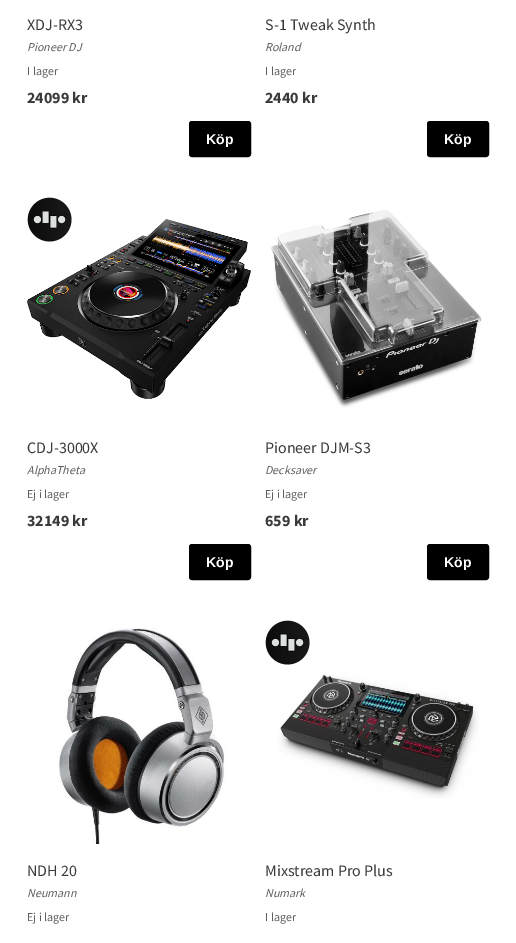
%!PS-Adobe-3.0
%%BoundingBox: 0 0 516 943
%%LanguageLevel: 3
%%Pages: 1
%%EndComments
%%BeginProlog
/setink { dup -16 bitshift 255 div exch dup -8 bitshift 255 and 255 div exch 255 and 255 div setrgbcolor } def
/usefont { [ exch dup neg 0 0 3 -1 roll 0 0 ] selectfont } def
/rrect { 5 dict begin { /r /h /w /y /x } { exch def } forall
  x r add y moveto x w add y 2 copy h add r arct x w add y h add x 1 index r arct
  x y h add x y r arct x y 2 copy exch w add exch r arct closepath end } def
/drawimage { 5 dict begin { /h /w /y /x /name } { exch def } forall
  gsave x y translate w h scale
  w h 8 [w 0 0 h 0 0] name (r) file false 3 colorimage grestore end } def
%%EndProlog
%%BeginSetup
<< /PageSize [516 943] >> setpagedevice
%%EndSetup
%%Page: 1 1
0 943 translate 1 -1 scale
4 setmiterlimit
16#FFFFFF setink
0 0 516 943 rectfill
/SourceSansPro-Regular 16 usefont
16#3C3939 setink
27 30 moveto (XDJ-RX3) show
/SourceSansPro-Italic 12 usefont
16#635E5E setink
27 51 moveto (Pioneer DJ) show
/SourceSansPro-Regular 12 usefont
27 75 moveto (I lager) show
/SourceSansPro-Bold 16 usefont
16#3C3939 setink
27 103 moveto (24099 kr) show
16#000000 setink
189.5 121.5 61 35 2.5 rrect gsave fill grestore
stroke
/LiberationSans-Bold 14 usefont
16#FFFFFF setink
206 144 moveto (Köp) show
/SourceSansPro-Regular 16 usefont
16#3C3939 setink
265 30 moveto (S-1 Tweak Synth) show
/SourceSansPro-Italic 12 usefont
16#635E5E setink
265 51 moveto (Roland) show
/SourceSansPro-Regular 12 usefont
265 75 moveto (I lager) show
/SourceSansPro-Bold 16 usefont
16#3C3939 setink
265 103 moveto (2440 kr) show
16#000000 setink
427.5 121.5 61 35 2.5 rrect gsave fill grestore
stroke
/LiberationSans-Bold 14 usefont
16#FFFFFF setink
444 144 moveto (Köp) show
(img2.raw) 27 219 224 180 drawimage
(img1.raw) 27 197 45 45 drawimage
/SourceSansPro-Regular 16 usefont
16#3C3939 setink
27 453 moveto (CDJ-3000X) show
/SourceSansPro-Italic 12 usefont
16#635E5E setink
27 474 moveto (AlphaTheta) show
/SourceSansPro-Regular 12 usefont
27 498 moveto (Ej i lager) show
/SourceSansPro-Bold 16 usefont
16#3C3939 setink
27 526 moveto (32149 kr) show
16#000000 setink
189.5 544.5 61 35 2.5 rrect gsave fill grestore
stroke
/LiberationSans-Bold 14 usefont
16#FFFFFF setink
206 567 moveto (Köp) show
(img3.raw) 271 210 211 198 drawimage
/SourceSansPro-Regular 16 usefont
16#3C3939 setink
265 453 moveto (Pioneer DJM-S3) show
/SourceSansPro-Italic 12 usefont
16#635E5E setink
265 474 moveto (Decksaver) show
/SourceSansPro-Regular 12 usefont
265 498 moveto (Ej i lager) show
/SourceSansPro-Bold 16 usefont
16#3C3939 setink
265 526 moveto (659 kr) show
16#000000 setink
427.5 544.5 61 35 2.5 rrect gsave fill grestore
stroke
/LiberationSans-Bold 14 usefont
16#FFFFFF setink
444 567 moveto (Köp) show
(img4.raw) 59 628 167 216 drawimage
/SourceSansPro-Regular 16 usefont
16#3C3939 setink
27 876 moveto (NDH 20) show
/SourceSansPro-Italic 12 usefont
16#635E5E setink
27 897 moveto (Neumann) show
/SourceSansPro-Regular 12 usefont
27 921 moveto (Ej i lager) show
(img1.raw) 265 620 45 45 drawimage
(img5.raw) 278 674 201 125 drawimage
/SourceSansPro-Regular 16 usefont
16#3C3939 setink
265 876 moveto (Mixstream Pro Plus) show
/SourceSansPro-Italic 12 usefont
16#635E5E setink
265 897 moveto (Numark) show
/SourceSansPro-Regular 12 usefont
265 921 moveto (I lager) show
showpage
%%EOF
